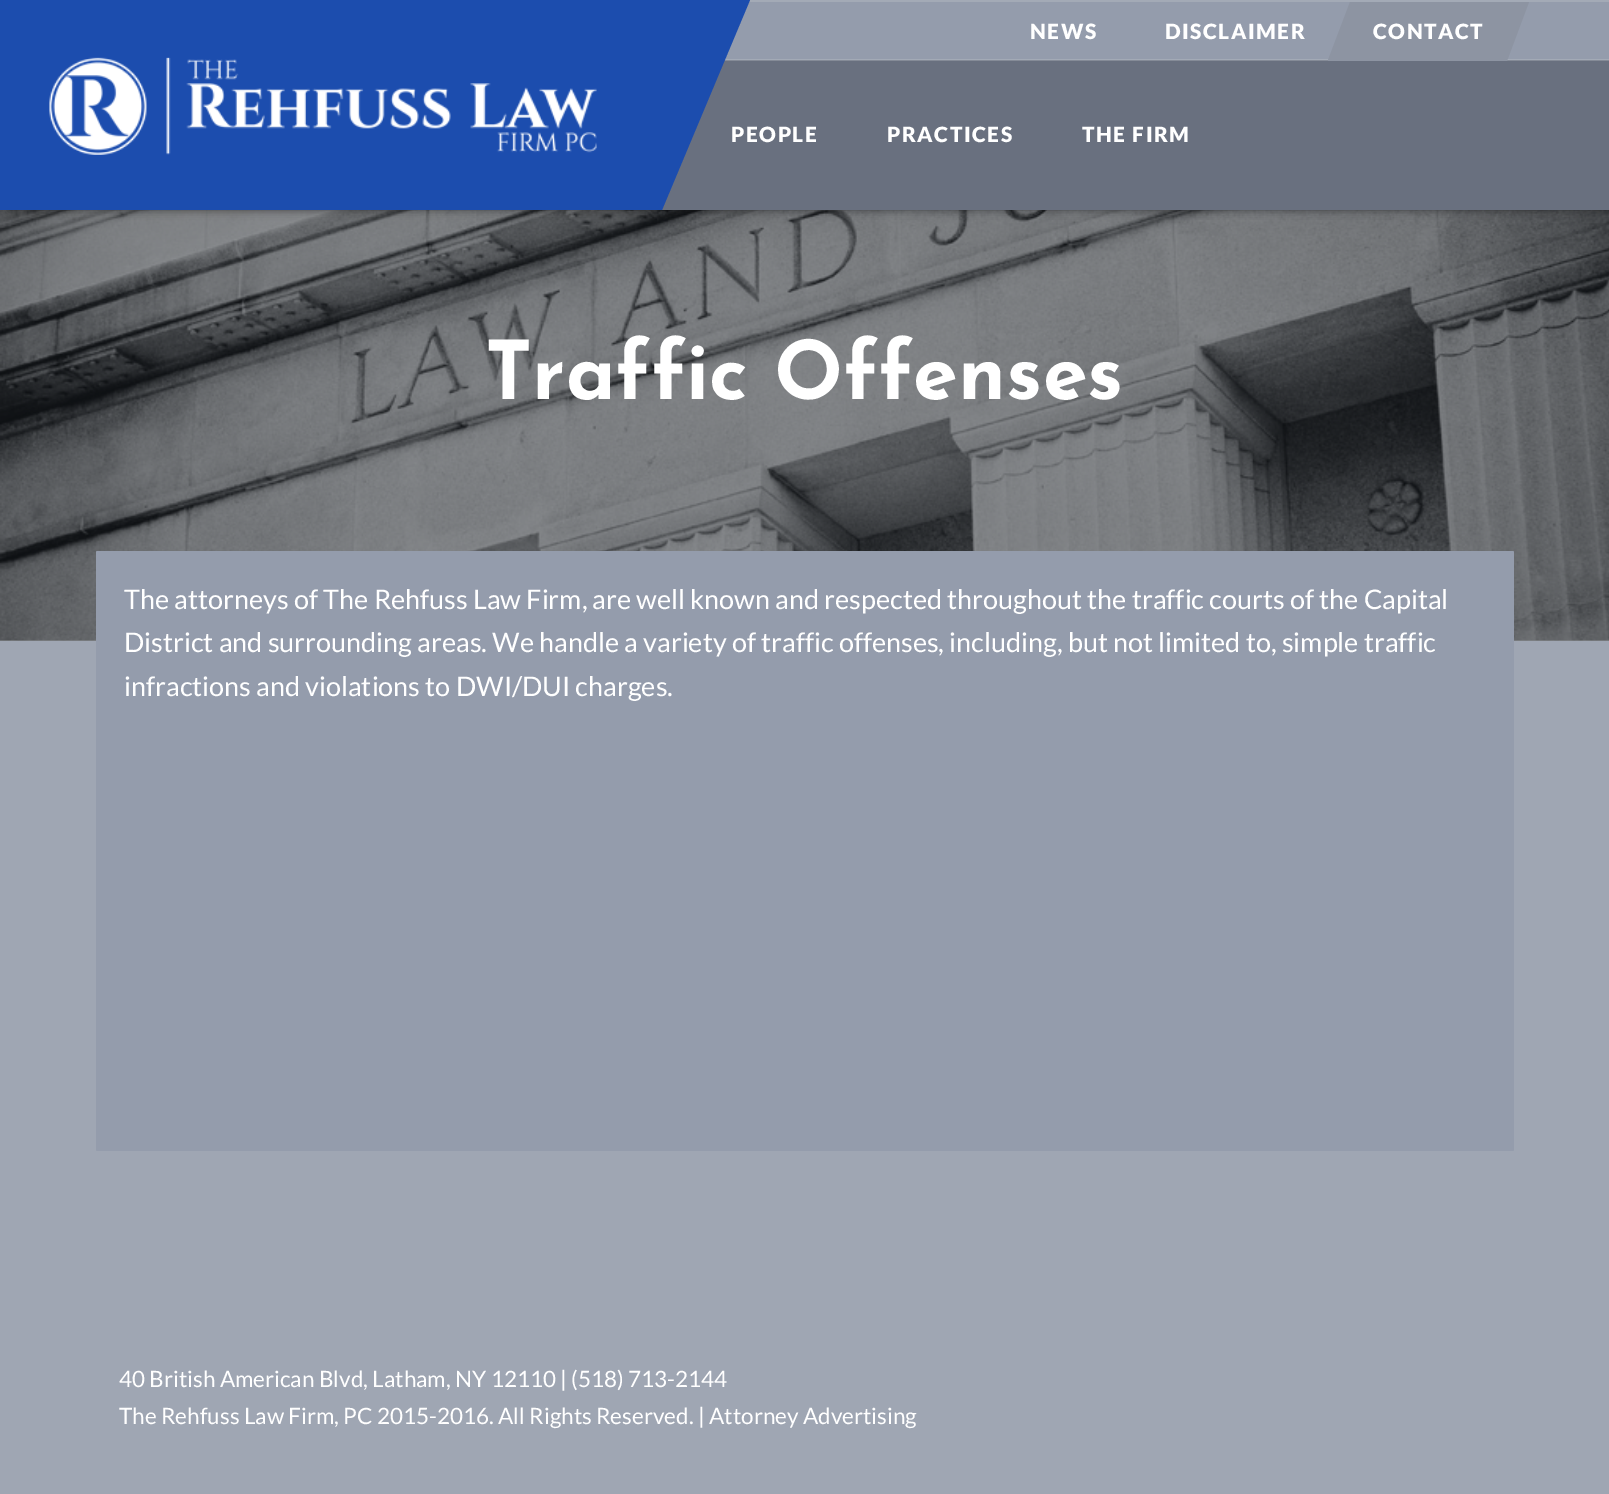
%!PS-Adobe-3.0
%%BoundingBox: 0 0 1609 1494
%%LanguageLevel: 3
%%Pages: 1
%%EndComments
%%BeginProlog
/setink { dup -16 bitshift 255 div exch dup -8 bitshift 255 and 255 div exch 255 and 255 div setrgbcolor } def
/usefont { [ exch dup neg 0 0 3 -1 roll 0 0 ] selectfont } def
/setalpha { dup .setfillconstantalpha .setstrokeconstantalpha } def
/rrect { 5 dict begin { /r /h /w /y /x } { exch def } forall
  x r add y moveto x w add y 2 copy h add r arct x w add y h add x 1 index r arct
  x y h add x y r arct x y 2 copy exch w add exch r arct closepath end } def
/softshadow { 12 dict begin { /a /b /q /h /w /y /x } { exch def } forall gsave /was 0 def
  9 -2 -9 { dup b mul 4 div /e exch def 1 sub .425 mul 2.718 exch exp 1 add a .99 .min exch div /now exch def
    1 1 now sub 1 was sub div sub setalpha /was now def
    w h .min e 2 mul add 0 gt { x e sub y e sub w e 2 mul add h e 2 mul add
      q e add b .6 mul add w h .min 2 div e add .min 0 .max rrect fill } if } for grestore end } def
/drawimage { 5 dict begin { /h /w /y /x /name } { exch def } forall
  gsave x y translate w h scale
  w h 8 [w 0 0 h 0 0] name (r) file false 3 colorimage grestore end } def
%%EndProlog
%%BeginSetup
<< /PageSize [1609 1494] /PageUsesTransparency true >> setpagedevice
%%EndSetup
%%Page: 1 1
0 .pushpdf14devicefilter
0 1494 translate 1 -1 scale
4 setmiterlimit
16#9FA6B3 setink
0 0 1609 1494 rectfill
16#8A8D91 setink
0 640 1609 1 rectfill
(img2.raw) 0 210 1609 431 drawimage
16#000000 setink
9 0 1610 210 0 4.5 0.5 softshadow
[
    [662 61 947 149 16#69707F]
    [724 60 885 1 16#858B97]
    [725 2 884 57 16#949CAC]
    [724 59 885 1 16#A3AAB6]
    [749 0 860 2 16#A3AAB6]
] { aload pop setink rectfill } forall
/Lato-Black 21 usefont
16#FFFFFF setink
1030 39 moveto 1.5 0 (NEWS) ashow
1165 39 moveto 1.5 0 (DISCLAIMER) ashow
16#8D94A2 setink
1328 60 moveto 1350 2 lineto 1529 2 lineto 1507 61 lineto 1328 61 lineto closepath fill
16#FFFFFF setink
1373 39 moveto 1.5 0 (CONTACT) ashow
731 142 moveto 1.5 0 (PEOPLE) ashow
16#1C4DAE setink
0 0 moveto 0 210 lineto 662 210 lineto 750 0 lineto closepath fill
(img1.raw) 49 57 548 98 drawimage
16#FFFFFF setink
887 142 moveto 1.5 0 (PRACTICES) ashow
1082 142 moveto 1.5 0 (THE FIRM) ashow
/JosefinSans-Bold 81 usefont
485 399 moveto (Traffic Offenses) show
16#949CAC setink
96 551 1418 600 1.5 rrect fill
/Lato-Regular 27 usefont
16#FFFFFF setink
[
    [(The attorneys of The Rehfuss Law Firm, are well known and respected throughout the traffic courts of the Capital) 124 609]
    [(District and surrounding areas. We handle a variety of traffic offenses, including, but not limited to, simple traffic) 124 652]
    [(infractions and violations to DWI/DUI charges.) 124 696]
] { aload pop moveto show } forall
/Lato-Regular 22.5 usefont
119 1387 moveto (40 British American Blvd, Latham, NY 12110 | \(518\) 713-2144) show
119 1424 moveto (The Rehfuss Law Firm, PC 2015-2016. All Rights Reserved. | Attorney Advertising) show
.poppdf14devicefilter showpage
%%EOF
